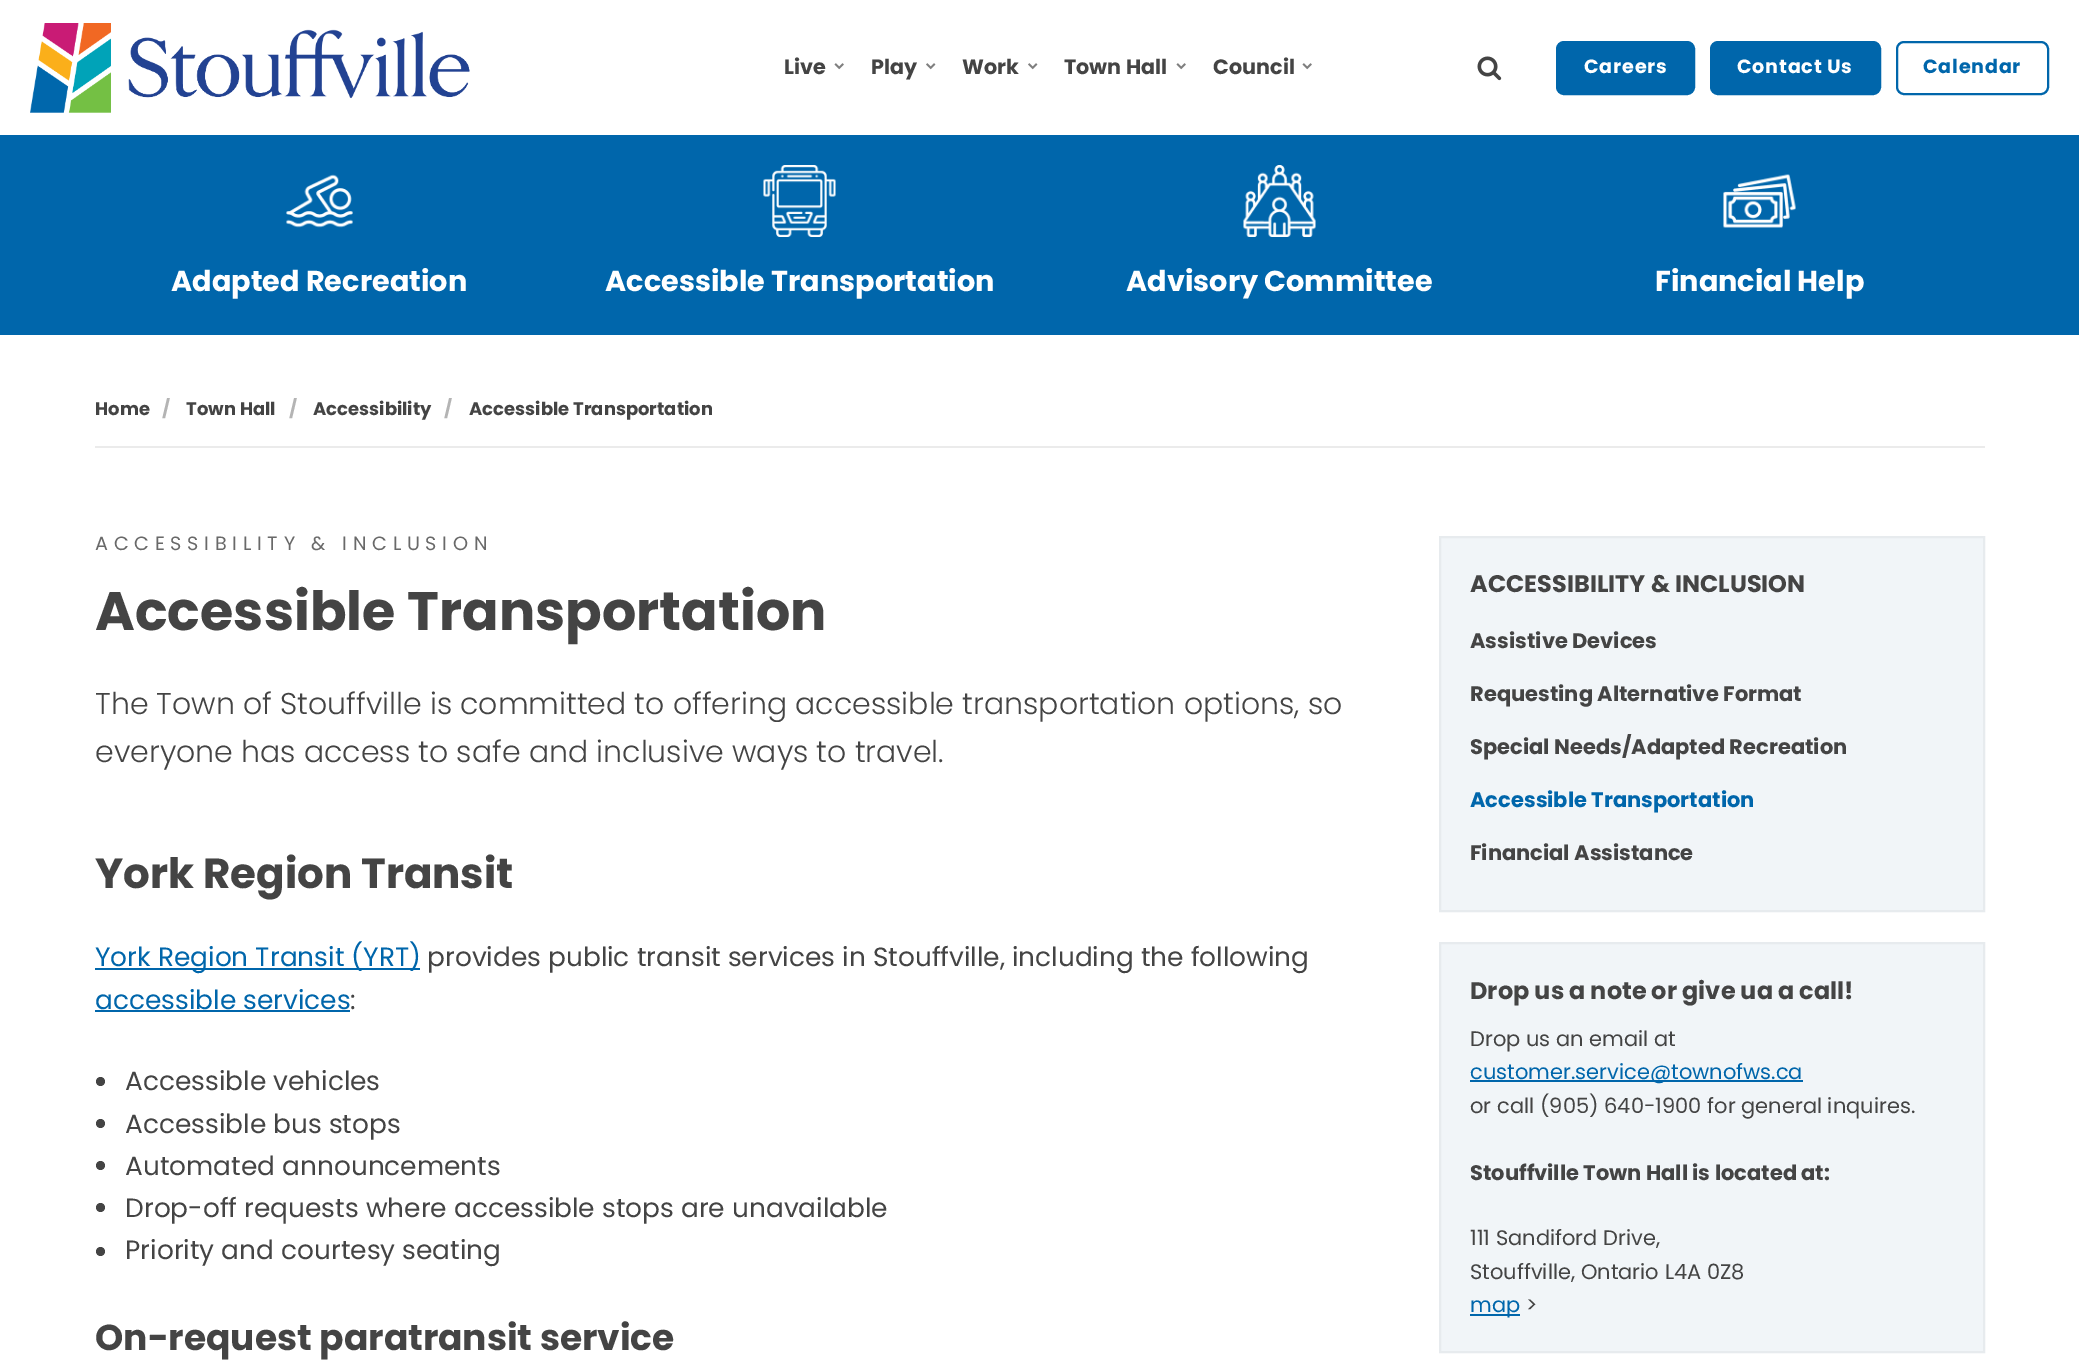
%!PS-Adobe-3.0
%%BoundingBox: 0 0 2079 1361
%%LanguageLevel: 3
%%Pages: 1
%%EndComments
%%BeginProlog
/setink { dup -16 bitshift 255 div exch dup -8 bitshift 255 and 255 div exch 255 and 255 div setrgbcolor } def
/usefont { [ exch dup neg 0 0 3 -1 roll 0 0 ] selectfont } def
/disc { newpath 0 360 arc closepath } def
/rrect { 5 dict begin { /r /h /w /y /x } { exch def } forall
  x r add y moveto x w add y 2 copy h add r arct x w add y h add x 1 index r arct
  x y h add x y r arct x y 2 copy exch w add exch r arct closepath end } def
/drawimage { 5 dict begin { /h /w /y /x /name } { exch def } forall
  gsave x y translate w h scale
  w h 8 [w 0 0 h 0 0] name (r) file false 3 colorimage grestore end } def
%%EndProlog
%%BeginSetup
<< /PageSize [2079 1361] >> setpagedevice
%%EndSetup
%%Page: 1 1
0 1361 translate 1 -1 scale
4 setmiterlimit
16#FFFFFF setink
0 0 2079 1361 rectfill
(img1.raw) 30 23 440 90 drawimage
/Poppins-Bold 20.75 usefont
16#444444 setink
784 74 moveto (Live) show
(img2.raw) 834 63 10 7 drawimage
871 74 moveto (Play) show
(img3.raw) 926 63 10 7 drawimage
962 74 moveto (Work) show
(img3.raw) 1028 63 10 7 drawimage
1064 74 moveto (Town Hall) show
(img2.raw) 1176 63 10 7 drawimage
1213 74 moveto (Council) show
(img2.raw) 1302 63 10 7 drawimage
(img4.raw) 1477 56 25 25 drawimage
16#0066AB setink
1557 42 137 52 7 rrect gsave fill grestore
2 setlinewidth
stroke
/Poppins-Bold 19.2 usefont
16#FFFFFF setink
1584 73 moveto 0.75 0 (Careers) ashow
16#0066AB setink
1711 42 169 52 7 rrect gsave fill grestore
stroke
16#FFFFFF setink
1737 73 moveto 0.75 0 (Contact Us) ashow
16#0066AB setink
1897 42 151 52 7 rrect stroke
1923 73 moveto 0.75 0 (Calendar) ashow
0 135 2079 200 rectfill
(img5.raw) 286 174 67 54 drawimage
/Poppins-Bold 28.75 usefont
16#FFFFFF setink
171 291 moveto (Adapted Recreation) show
(img6.raw) 763 165 73 72 drawimage
605 291 moveto (Accessible Transportation) show
(img7.raw) 1243 165 73 72 drawimage
1126 291 moveto (Advisory Committee) show
(img8.raw) 1723 174 73 54 drawimage
1655 291 moveto (Financial Help) show
/Poppins-Bold 18 usefont
16#444444 setink
95 415 moveto (Home) show
16#B4B4B4 setink
162 415 moveto (/) show
16#444444 setink
186 415 moveto (Town Hall) show
16#B4B4B4 setink
289 415 moveto (/) show
16#444444 setink
313 415 moveto (Accessibility) show
16#B4B4B4 setink
444 415 moveto (/) show
16#444444 setink
469 415 moveto (Accessible Transportation) show
16#EBEBEB setink
95 446 1890 2 rectfill
/Poppins-Regular 19.2 usefont
16#696969 setink
95 550 moveto 5.75 0 (ACCESSIBILITY & INCLUSION) ashow
/Poppins-Bold 54 usefont
16#444444 setink
95 630 moveto (Accessible Transportation) show
/Poppins-Light 30 usefont
95 714 moveto (The Town of Stouffville is committed to offering accessible transportation options, so) show
95 762 moveto (everyone has access to safe and inclusive ways to travel.) show
/Poppins-Bold 42 usefont
95 888 moveto (York Region Transit) show
16#0066AB setink
95 968 325 2 rectfill
/Poppins-Regular 26.4 usefont
95 966 moveto (York Region Transit \(YRT\)) show
16#444444 setink
427 966 moveto (provides public transit services in Stouffville, including the following) show
16#0066AB setink
95 1009 moveto (accessible services) show
95 1010 255 2 rectfill
16#444444 setink
350 1009 moveto (:) show
100.5 1081.5 4.5 disc fill
125 1090 moveto (Accessible vehicles) show
100.5 1123.5 4.5 disc fill
125 1133 moveto (Accessible bus stops) show
100.5 1165.5 4.5 disc fill
125 1175 moveto (Automated announcements) show
100.5 1207.5 4.5 disc fill
125 1217 moveto (Drop-off requests where accessible stops are unavailable) show
100.5 1251.5 4.5 disc fill
125 1259 moveto (Priority and courtesy seating) show
/Poppins-Bold 36 usefont
95 1350 moveto (On-request paratransit service) show
16#F1F5F8 setink
1440 537 moveto 1984 537 lineto 1984 911 lineto 1440 911 lineto closepath gsave fill grestore
16#E7EBEE setink
stroke
/Poppins-Bold 24 usefont
16#444444 setink
1470 592 moveto (ACCESSIBILITY & INCLUSION) show
/Poppins-Bold 21 usefont
[
    [(Assistive Devices) 1470 648]
    [(Requesting Alternative Format) 1470 701]
    [(Special Needs/Adapted Recreation) 1470 754]
] { aload pop moveto show } forall
16#0066AB setink
1470 807 moveto (Accessible Transportation) show
16#444444 setink
1470 860 moveto (Financial Assistance) show
16#F1F5F8 setink
1440 943 moveto 1984 943 lineto 1984 1352 lineto 1440 1352 lineto closepath gsave fill grestore
16#E7EBEE setink
stroke
/Poppins-Bold 24 usefont
16#444444 setink
1470 999 moveto (Drop us a note or give ua a call!) show
/Poppins-Regular 21 usefont
1470 1046 moveto (Drop us an email at) show
16#0066AB setink
1470 1080 333 2 rectfill
1470 1079 moveto (customer.service@townofws.ca) show
16#444444 setink
1470 1113 moveto (or call \(905\) 640-1900 for general inquires.) show
/Poppins-Bold 21 usefont
1470 1180 moveto (Stouffville Town Hall is located at:) show
/Poppins-Regular 21 usefont
1470 1245 moveto (111 Sandiford Drive,) show
1470 1279 moveto (Stouffville, Ontario L4A 0Z8) show
16#0066AB setink
1470 1314 50 2 rectfill
1470 1312 moveto (map) show
16#444444 setink
1526 1312 moveto (>) show
showpage
%%EOF
